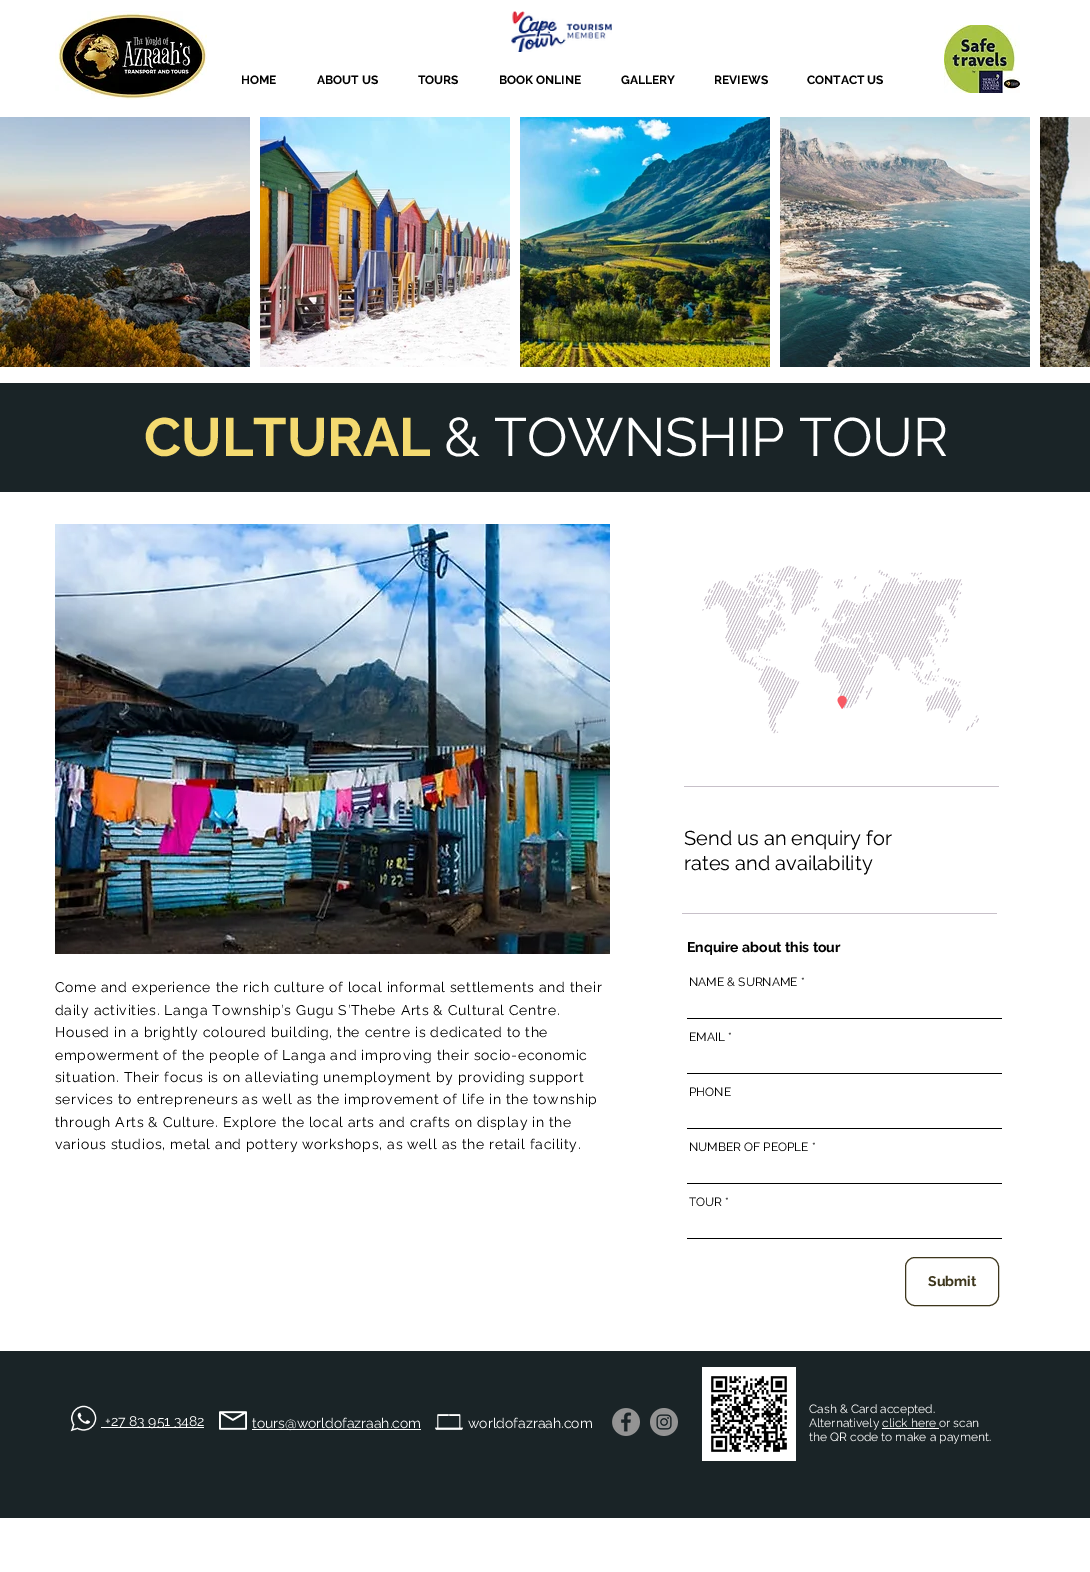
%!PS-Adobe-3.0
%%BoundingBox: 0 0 1090 1572
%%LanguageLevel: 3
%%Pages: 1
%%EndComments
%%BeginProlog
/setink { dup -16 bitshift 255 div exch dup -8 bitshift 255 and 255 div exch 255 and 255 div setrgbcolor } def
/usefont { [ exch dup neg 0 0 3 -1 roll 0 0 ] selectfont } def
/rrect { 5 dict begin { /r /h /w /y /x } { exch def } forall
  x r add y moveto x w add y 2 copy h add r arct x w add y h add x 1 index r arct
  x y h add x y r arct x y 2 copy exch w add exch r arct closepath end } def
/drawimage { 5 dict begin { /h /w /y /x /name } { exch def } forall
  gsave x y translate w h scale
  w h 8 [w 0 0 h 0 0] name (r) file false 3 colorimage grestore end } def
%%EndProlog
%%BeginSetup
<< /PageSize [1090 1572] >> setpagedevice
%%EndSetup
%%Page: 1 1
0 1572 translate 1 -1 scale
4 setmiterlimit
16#FFFFFF setink
0 0 1090 1572 rectfill
(img1.raw) 55 11 152 89 drawimage
(img2.raw) 511 11 101 41 drawimage
(img3.raw) 944 25 76 68 drawimage
/Raleway-Bold 12 usefont
16#000000 setink
[
    [(HOME) 241 84]
    [(ABOUT US) 317 84]
    [(TOURS) 418 84]
    [(BOOK ONLINE) 499 84]
    [(GALLERY) 621 84]
    [(REVIEWS) 714 84]
    [(CONTACT US) 807 84]
] { aload pop moveto show } forall
(img4.raw) 0 117 250 250 drawimage
(img5.raw) 260 117 250 250 drawimage
(img6.raw) 520 117 250 250 drawimage
(img7.raw) 780 117 250 250 drawimage
(img8.raw) 1040 117 50 250 drawimage
16#1A2427 setink
0 383 1090 109 rectfill
/Raleway-Bold 54 usefont
16#F4DA70 setink
144 456 moveto (CULTURAL) show
/Raleway-Regular 54 usefont
16#FFFFFF setink
444 456 moveto (& TOWNSHIP TOUR) show
(img9.raw) 55 524 555 430 drawimage
(img10.raw) 702 565 277 169 drawimage
(img11.raw) 837 695 10 14 drawimage
16#C7C0C9 setink
684 786 315 1 rectfill
/Raleway-Regular 20 usefont
16#000000 setink
684 845 moveto (Send us an enquiry for) show
684 870 moveto (rates and availability) show
16#C7C0C9 setink
682 913 315 1 rectfill
/Raleway-Regular 14 usefont
16#000000 setink
55 992 moveto 0.7 0 (Come and experience the rich culture of local informal settlements and their) ashow
55 1015 moveto 0.7 0 (daily activities. Langa Township’s Gugu S’Thebe Arts & Cultural Centre.) ashow
55 1037 moveto 0.7 0 (Housed in a brightly coloured building, the centre is dedicated to the) ashow
55 1060 moveto 0.7 0 (empowerment of the people of Langa and improving their socio-economic) ashow
55 1082 moveto 0.7 0 (situation. Their focus is on alleviating unemployment by providing support) ashow
55 1104 moveto 0.7 0 (services to entrepreneurs as well as the improvement of life in the township) ashow
55 1127 moveto 0.7 0 (through Arts & Culture. Explore the local arts and crafts on display in the) ashow
55 1149 moveto 0.7 0 (various studios, metal and pottery workshops, as well as the retail facility.) ashow
/Raleway-Bold 14 usefont
687 952 moveto (Enquire about this tour) show
/Raleway-Regular 12 usefont
689 986 moveto (NAME & SURNAME *) show
687 1018 315 1 rectfill
689 1041 moveto (EMAIL *) show
687 1073 315 1 rectfill
689 1096 moveto (PHONE) show
687 1128 315 1 rectfill
689 1151 moveto (NUMBER OF PEOPLE *) show
687 1183 315 1 rectfill
689 1206 moveto (TOUR *) show
687 1238 315 1 rectfill
16#3D361C setink
905.5 1257.5 93 48 9.5 rrect stroke
/Raleway-Bold 14 usefont
928 1286 moveto (Submit) show
16#1A2427 setink
0 1351 1090 167 rectfill
(img12.raw) 70 1405 27 27 drawimage
16#FFFFFF setink
101 1427 103 1 rectfill
/Raleway-Regular 14 usefont
105 1426 moveto (+27 83 951 3482) show
(img13.raw) 219 1411 28 19 drawimage
252 1429 169 1 rectfill
252 1428 moveto (tours@worldofazraah.com) show
(img14.raw) 435 1414 28 16 drawimage
468 1428 moveto (worldofazraah.com) show
(img15.raw) 612 1408 28 28 drawimage
(img16.raw) 650 1408 28 28 drawimage
(img17.raw) 702 1367 94 94 drawimage
/Raleway-Regular 12 usefont
809 1413 moveto (Cash & Card accepted.) show
809 1427 moveto (Alternatively click here or scan) show
882 1428 57 1 rectfill
809 1441 moveto (the QR code to make a payment.) show
showpage
%%EOF
